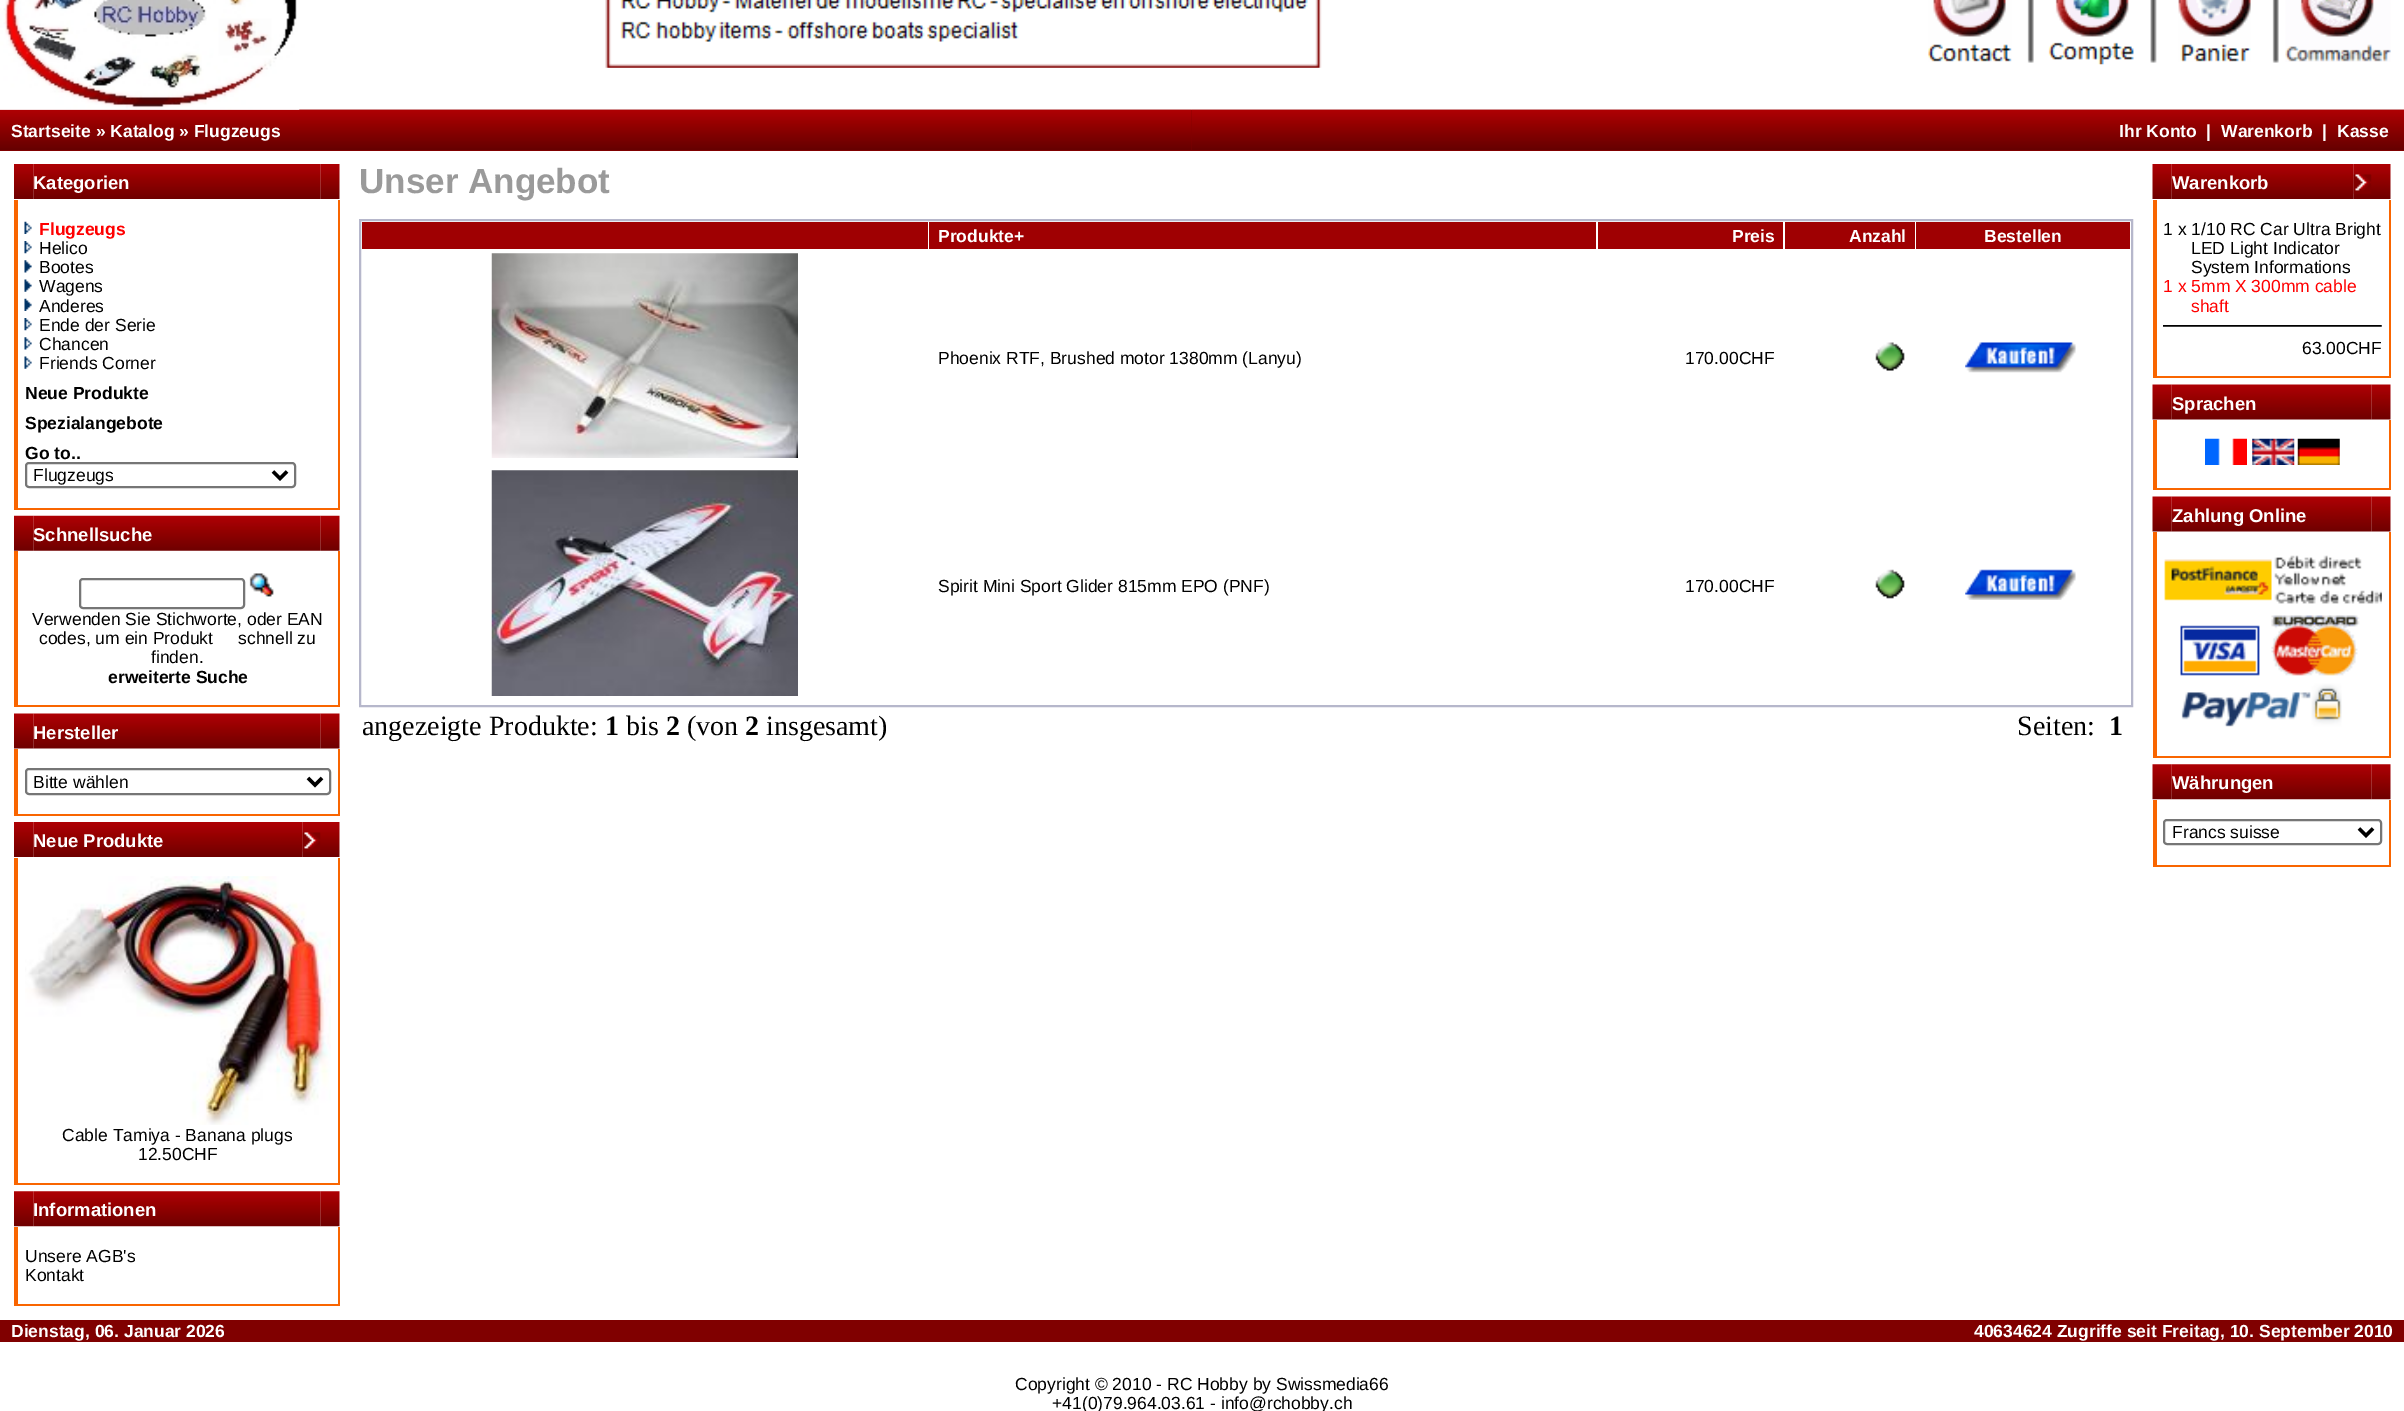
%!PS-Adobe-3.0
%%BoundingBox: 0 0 2404 1411
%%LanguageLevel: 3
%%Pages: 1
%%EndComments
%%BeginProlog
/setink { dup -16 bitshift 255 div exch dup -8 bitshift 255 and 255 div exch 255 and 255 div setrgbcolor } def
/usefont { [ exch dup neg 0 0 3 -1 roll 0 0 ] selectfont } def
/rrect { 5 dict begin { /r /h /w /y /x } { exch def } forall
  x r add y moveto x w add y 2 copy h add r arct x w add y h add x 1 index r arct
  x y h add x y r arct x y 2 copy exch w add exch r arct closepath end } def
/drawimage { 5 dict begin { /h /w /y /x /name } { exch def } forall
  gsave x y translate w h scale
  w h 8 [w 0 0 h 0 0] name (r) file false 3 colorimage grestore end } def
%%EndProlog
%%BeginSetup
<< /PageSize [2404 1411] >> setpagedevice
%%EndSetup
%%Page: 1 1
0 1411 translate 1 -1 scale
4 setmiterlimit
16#FFFFFF setink
0 0 2404 1411 rectfill
16#800000 setink
0 110 2404 41 rectfill
(img9.raw) 0 109 1192 41 drawimage
(img1.raw) 0 0 300 110 drawimage
(img2.raw) 605 0 717 68 drawimage
(img3.raw) 1928 0 84 62 drawimage
(img4.raw) 2027 0 7 63 drawimage
(img5.raw) 2048 0 86 65 drawimage
(img6.raw) 2150 0 7 63 drawimage
(img7.raw) 2178 0 73 62 drawimage
(img4.raw) 2272 0 7 63 drawimage
(img8.raw) 2285 0 106 62 drawimage
/LiberationSans-Bold 17.5 usefont
16#FFFFFF setink
11 137 moveto (Startseite » Katalog » Flugzeugs) show
(img10.raw) 1191 109 1213 41 drawimage
[
    [(Ihr Konto) 2119 137]
    [(|) 2206 137]
    [(Warenkorb) 2221 137]
    [(|) 2322 137]
    [(Kasse) 2337 137]
] { aload pop moveto show } forall
(img11.raw) 14 164 20 35 drawimage
(img12.raw) 33 164 288 35 drawimage
/LiberationSans-Bold 18.5 usefont
33 189 moveto (Kategorien) show
(img13.raw) 320 164 20 35 drawimage
[
    [338 200 2 309 16#F96500]
    [14 508 326 2 16#F96500]
    [14 200 4 309 16#F96500]
] { aload pop setink rectfill } forall
(img14.raw) 24 221 8 13 drawimage
/LiberationSans-Bold 17.5 usefont
16#FF0000 setink
39 235 moveto (Flugzeugs) show
(img15.raw) 24 241 8 13 drawimage
/LiberationSans-Regular 17.5 usefont
16#000000 setink
39 254 moveto (Helico) show
(img16.raw) 24 260 8 13 drawimage
39 273 moveto (Bootes) show
(img17.raw) 24 279 8 13 drawimage
39 292 moveto (Wagens) show
(img18.raw) 24 298 8 13 drawimage
39 312 moveto (Anderes) show
(img15.raw) 24 318 8 13 drawimage
39 331 moveto (Ende der Serie) show
(img19.raw) 24 337 8 13 drawimage
39 350 moveto (Chancen) show
(img20.raw) 24 356 8 13 drawimage
39 369 moveto (Friends Corner) show
/LiberationSans-Bold 17.5 usefont
[
    [(Neue Produkte) 25 399]
    [(Spezialangebote) 25 429]
    [(Go to..) 25 459]
] { aload pop moveto show } forall
16#767676 setink
2 setlinewidth
26 463 269 24 3 rrect stroke
16#000000 setink
3.5 setlinewidth
273 471.5 moveto 280 478.5 lineto 287 471.5 lineto stroke
/LiberationSans-Regular 17.5 usefont
33 481 moveto (Flugzeugs) show
(img21.raw) 14 515 20 36 drawimage
(img22.raw) 33 515 288 36 drawimage
/LiberationSans-Bold 18.5 usefont
16#FFFFFF setink
33 541 moveto (Schnellsuche) show
(img23.raw) 320 515 20 36 drawimage
[
    [338 551 2 156 16#F96500]
    [14 705 326 2 16#F96500]
    [14 551 4 156 16#F96500]
] { aload pop setink rectfill } forall
16#767676 setink
2 setlinewidth
80 579 164 29 3 rrect stroke
(img24.raw) 249 573 25 24 drawimage
/LiberationSans-Regular 17.5 usefont
16#000000 setink
[
    [(Verwenden Sie Stichworte, oder EAN) 32 625]
    [(codes, um ein Produkt) 39 644]
    [(schnell zu) 238 644]
    [(finden.) 151 663]
] { aload pop moveto show } forall
/LiberationSans-Bold 17.5 usefont
108 683 moveto (erweiterte Suche) show
(img25.raw) 14 713 20 36 drawimage
(img26.raw) 33 713 288 36 drawimage
/LiberationSans-Bold 18.5 usefont
16#FFFFFF setink
33 739 moveto (Hersteller) show
(img27.raw) 320 713 20 36 drawimage
[
    [338 749 2 67 16#F96500]
    [14 814 326 2 16#F96500]
    [14 749 4 67 16#F96500]
] { aload pop setink rectfill } forall
16#767676 setink
26 769 304 25 3 rrect stroke
16#000000 setink
3.5 setlinewidth
308 778 moveto 315 785 lineto 322 778 lineto stroke
/LiberationSans-Regular 17.5 usefont
33 788 moveto (Bitte wählen) show
(img11.raw) 14 822 20 35 drawimage
(img28.raw) 33 822 270 35 drawimage
/LiberationSans-Bold 18.5 usefont
16#FFFFFF setink
33 847 moveto (Neue Produkte) show
(img29.raw) 302 822 38 35 drawimage
(img30.raw) 302 832 19 20 drawimage
[
    [338 858 2 327 16#F96500]
    [14 1183 326 2 16#F96500]
    [14 858 4 327 16#F96500]
] { aload pop setink rectfill } forall
(img31.raw) 25 876 306 249 drawimage
/LiberationSans-Regular 17.5 usefont
16#000000 setink
62 1141 moveto (Cable Tamiya - Banana plugs) show
138 1160 moveto (12.50CHF) show
(img32.raw) 14 1191 20 36 drawimage
(img33.raw) 33 1191 288 36 drawimage
/LiberationSans-Bold 18.5 usefont
16#FFFFFF setink
33 1216 moveto (Informationen) show
(img34.raw) 320 1191 20 36 drawimage
[
    [338 1227 2 79 16#F96500]
    [14 1304 326 2 16#F96500]
    [14 1227 4 79 16#F96500]
] { aload pop setink rectfill } forall
/LiberationSans-Regular 17.5 usefont
16#000000 setink
25 1262 moveto (Unsere AGB's) show
25 1281 moveto (Kontakt) show
/LiberationSans-Bold 35 usefont
16#9A9A9A setink
359 193 moveto (Unser Angebot) show
16#B6B7CB setink
2 setlinewidth
360 220 1772 486 rectstroke
16#9F0002 setink
362 222 566 27 rectfill
929 222 667 27 rectfill
/LiberationSans-Bold 17.5 usefont
16#FFFFFF setink
938 242 moveto (Produkte+) show
16#9F0002 setink
1598 222 185 27 rectfill
16#FFFFFF setink
1732 242 moveto (Preis) show
16#9F0002 setink
1785 222 130 27 rectfill
16#FFFFFF setink
1849 242 moveto (Anzahl) show
16#9F0002 setink
1916 222 214 27 rectfill
16#FFFFFF setink
1984 242 moveto (Bestellen) show
(img35.raw) 491 253 307 205 drawimage
/LiberationSans-Regular 17.5 usefont
16#000000 setink
938 364 moveto (Phoenix RTF, Brushed motor 1380mm \(Lanyu\)) show
1685 364 moveto (170.00CHF) show
(img36.raw) 1875 342 30 29 drawimage
(img37.raw) 1965 342 111 31 drawimage
(img38.raw) 491 470 307 226 drawimage
938 592 moveto (Spirit Mini Sport Glider 815mm EPO \(PNF\)) show
1685 592 moveto (170.00CHF) show
(img39.raw) 1875 569 30 30 drawimage
(img40.raw) 1965 569 111 31 drawimage
/LiberationSerif-Regular 28 usefont
362 735 moveto (angezeigte Produkte:) show
/LiberationSerif-Bold 28 usefont
605 735 moveto (1) show
/LiberationSerif-Regular 28 usefont
626 735 moveto (bis) show
/LiberationSerif-Bold 28 usefont
666 735 moveto (2) show
/LiberationSerif-Regular 28 usefont
687 735 moveto (\(von) show
/LiberationSerif-Bold 28 usefont
745 735 moveto (2) show
/LiberationSerif-Regular 28 usefont
766 735 moveto (insgesamt\)) show
2017 735 moveto (Seiten:) show
/LiberationSerif-Bold 28 usefont
2109 735 moveto (1) show
(img41.raw) 2152 164 20 35 drawimage
(img42.raw) 2171 164 183 35 drawimage
/LiberationSans-Bold 18.5 usefont
16#FFFFFF setink
2172 189 moveto (Warenkorb) show
(img29.raw) 2353 164 38 35 drawimage
(img30.raw) 2353 174 19 20 drawimage
[
    [2389 200 2 178 16#F96500]
    [2153 376 238 2 16#F96500]
    [2153 200 4 178 16#F96500]
] { aload pop setink rectfill } forall
/LiberationSans-Regular 17.5 usefont
16#000000 setink
[
    [(1 x 1/10 RC Car Ultra Bright) 2163 235]
    [(LED Light Indicator) 2191 254]
    [(System Informations) 2191 273]
] { aload pop moveto show } forall
16#FF0000 setink
2163 292 moveto (1 x 5mm X 300mm cable) show
2191 312 moveto (shaft) show
(img43.raw) 2163 325 219 2 drawimage
16#000000 setink
2302 354 moveto (63.00CHF) show
(img44.raw) 2152 384 20 36 drawimage
(img45.raw) 2171 384 201 36 drawimage
/LiberationSans-Bold 18.5 usefont
16#FFFFFF setink
2172 410 moveto (Sprachen) show
(img27.raw) 2371 384 20 36 drawimage
[
    [2389 420 2 70 16#F96500]
    [2153 488 238 2 16#F96500]
    [2153 420 4 70 16#F96500]
] { aload pop setink rectfill } forall
(img46.raw) 2205 438 42 27 drawimage
(img47.raw) 2252 438 43 27 drawimage
(img48.raw) 2297 438 43 27 drawimage
(img44.raw) 2152 496 20 36 drawimage
(img49.raw) 2171 496 201 36 drawimage
16#FFFFFF setink
2172 522 moveto (Zahlung Online) show
(img27.raw) 2371 496 20 36 drawimage
[
    [2389 532 2 226 16#F96500]
    [2153 756 238 2 16#F96500]
    [2153 532 4 226 16#F96500]
] { aload pop setink rectfill } forall
(img50.raw) 2164 555 218 172 drawimage
(img51.raw) 2152 764 20 36 drawimage
(img52.raw) 2171 764 201 36 drawimage
16#FFFFFF setink
2172 789 moveto (Währungen) show
(img34.raw) 2371 764 20 36 drawimage
[
    [2389 800 2 66 16#F96500]
    [2153 865 238 2 16#F96500]
    [2153 800 4 66 16#F96500]
] { aload pop setink rectfill } forall
16#767676 setink
2164 820 217 24 3 rrect stroke
16#000000 setink
3.5 setlinewidth
2359 828.5 moveto 2366 835.5 lineto 2373 828.5 lineto stroke
/LiberationSans-Regular 17.5 usefont
2172 838 moveto (Francs suisse) show
16#800000 setink
0 1320 2404 22 rectfill
/LiberationSans-Bold 17.5 usefont
16#FFFFFF setink
11 1337 moveto (Dienstag, 06. Januar 2026) show
1974 1337 moveto (40634624 Zugriffe seit Freitag, 10. September 2010) show
/LiberationSans-Regular 17.5 usefont
16#000000 setink
1015 1390 moveto (Copyright © 2010 - RC Hobby by Swissmedia66) show
1052 1409 moveto (+41\(0\)79.964.03.61 - info@rchobby.ch) show
showpage
%%EOF
